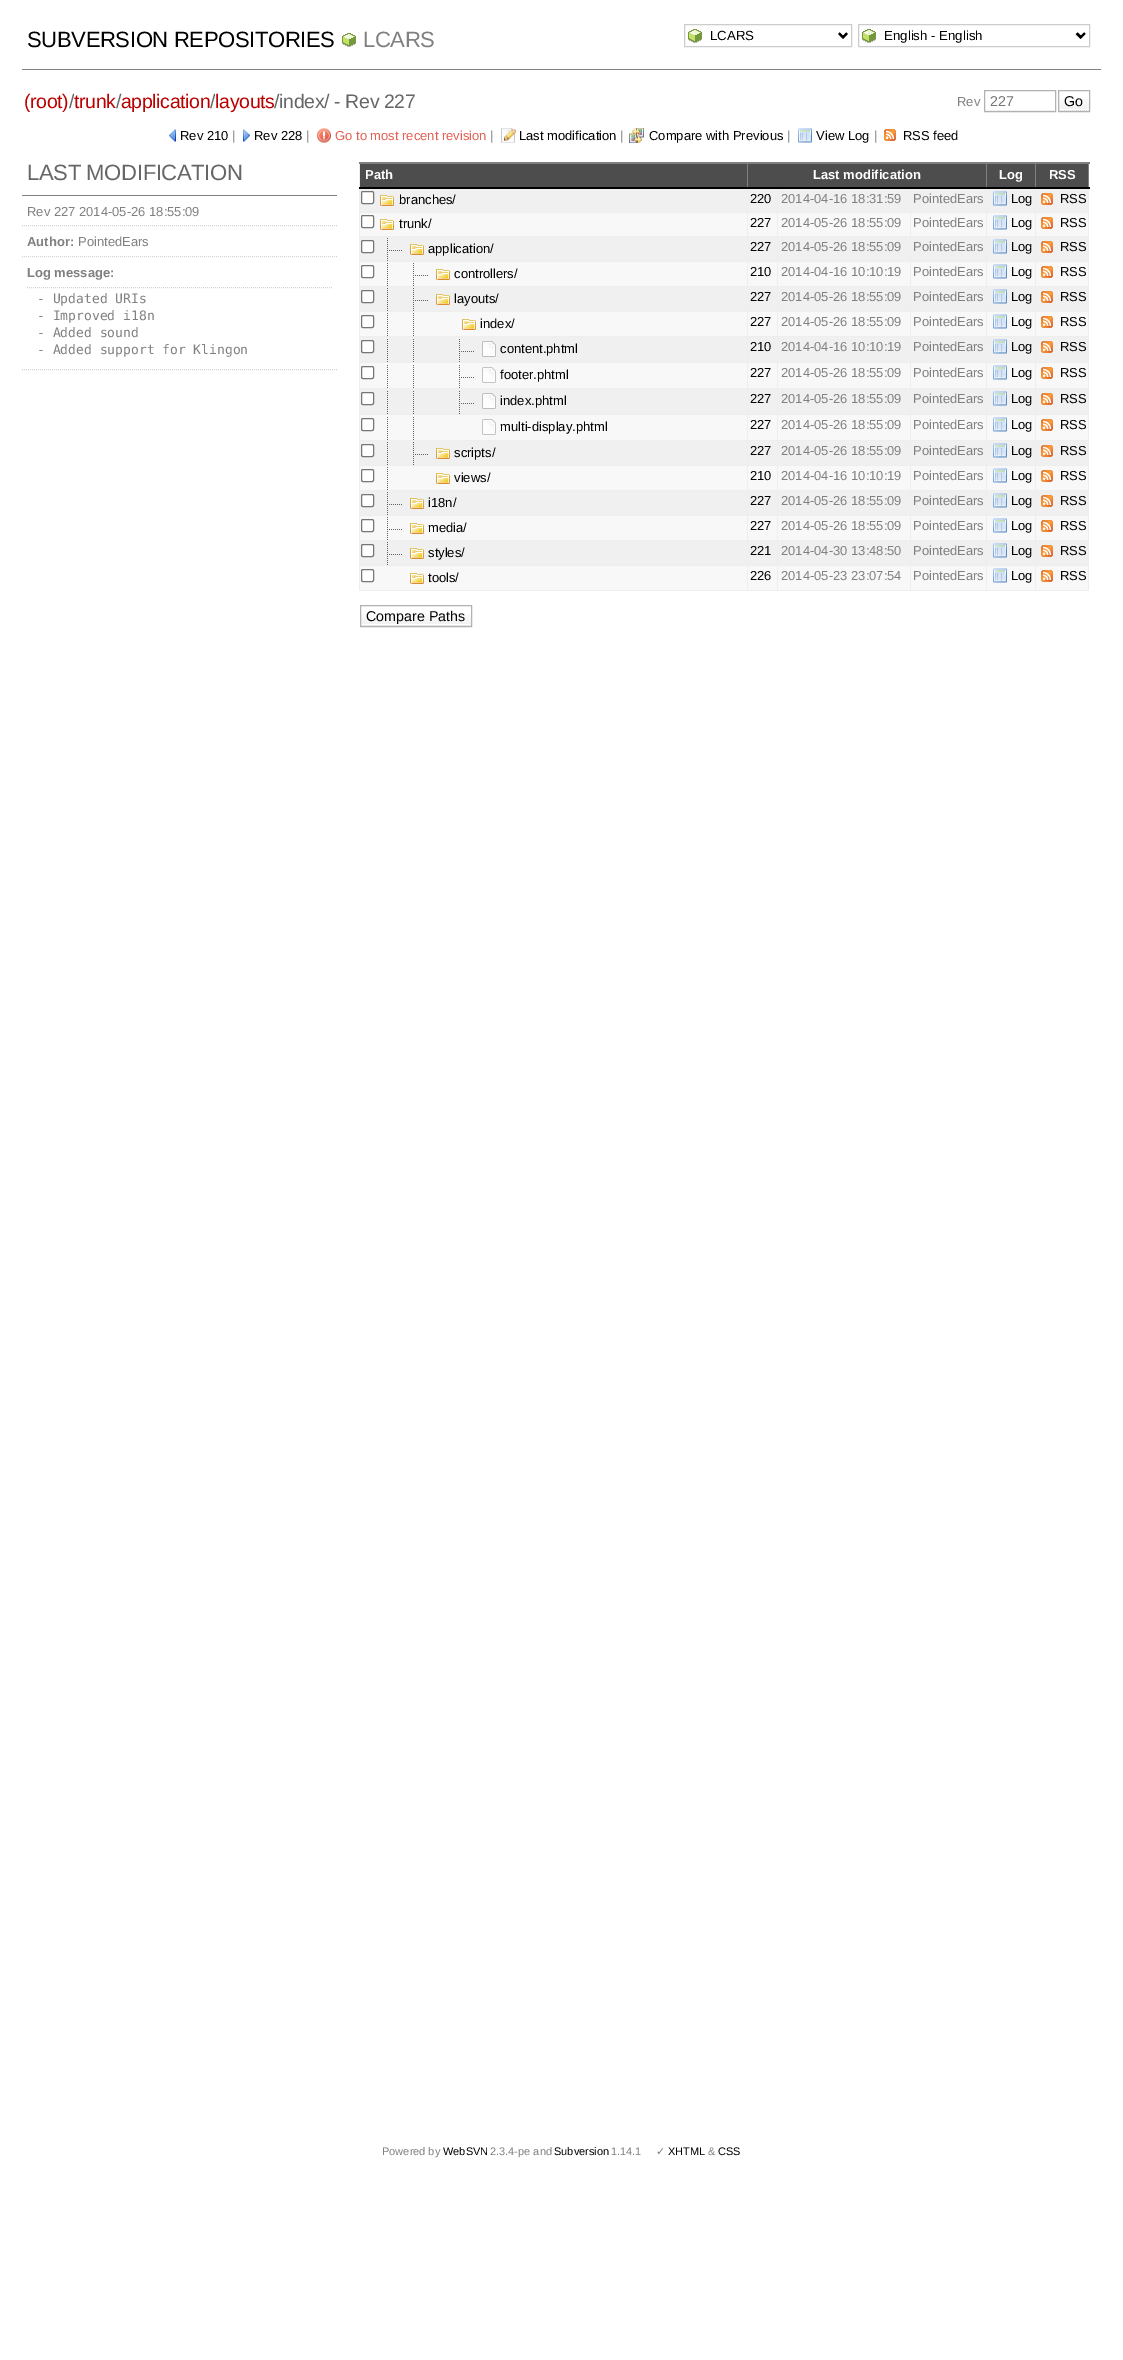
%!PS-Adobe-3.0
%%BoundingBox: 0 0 1123 2360
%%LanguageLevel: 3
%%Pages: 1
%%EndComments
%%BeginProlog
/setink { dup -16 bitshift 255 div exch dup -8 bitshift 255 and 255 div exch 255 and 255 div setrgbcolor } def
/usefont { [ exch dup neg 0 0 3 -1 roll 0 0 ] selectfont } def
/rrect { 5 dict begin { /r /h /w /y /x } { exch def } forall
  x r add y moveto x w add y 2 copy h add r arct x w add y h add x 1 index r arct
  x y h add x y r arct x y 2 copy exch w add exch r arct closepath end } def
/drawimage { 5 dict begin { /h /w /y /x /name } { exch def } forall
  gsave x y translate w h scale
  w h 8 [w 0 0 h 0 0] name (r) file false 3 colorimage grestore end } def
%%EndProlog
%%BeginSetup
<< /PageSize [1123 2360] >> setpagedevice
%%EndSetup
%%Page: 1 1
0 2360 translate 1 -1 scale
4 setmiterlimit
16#FFFFFF setink
0 0 1123 2360 rectfill
16#808080 setink
22 69 1079 1 rectfill
/LiberationSans-Regular 22.1 usefont
16#000000 setink
27 47 moveto -0.4 0 (SUBVERSION REPOSITORIES) ashow
(img1.raw) 342 33 14 14 drawimage
16#808080 setink
363 47 moveto -0.4 0 (LCARS) ashow
(img2.raw) 688 29 160 14 drawimage
16#CCCCCC setink
684.5 24.5 167 22 rectstroke
16#000000 setink
2 setlinewidth
839 33.5 moveto 843 37.5 lineto 847 33.5 lineto stroke
/LiberationSans-Regular 13.25 usefont
710 40 moveto (LCARS) show
(img3.raw) 862 29 224 14 drawimage
16#CCCCCC setink
1 setlinewidth
858.5 24.5 231 22 rectstroke
16#000000 setink
2 setlinewidth
1076.5 33.5 moveto 1080.5 37.5 lineto 1084.5 33.5 lineto stroke
884 40 moveto (English - English) show
/LiberationSans-Regular 19.5 usefont
16#BB0000 setink
24 108 moveto -0.35 0 (\(root\)) ashow
16#666666 setink
69 108 moveto -0.35 0 (/) ashow
16#FFFFFF setink
74 93 1 2 rectfill
16#BB0000 setink
74 108 moveto -0.35 0 (trunk application layouts) ashow
16#666666 setink
116 108 moveto -0.35 0 (/) ashow
210 108 moveto -0.35 0 (/) ashow
16#FFFFFF setink
215 93 1 3 rectfill
16#666666 setink
274 108 moveto -0.35 0 (/index/ - Rev 227) ashow
/LiberationSans-Regular 13 usefont
16#808080 setink
957 106 moveto (Rev) show
(img4.raw) 985 110 70 1 drawimage
16#B2B2B2 setink
1 setlinewidth
984.5 90.5 71 21 rectstroke
/LiberationSans-Regular 14.25 usefont
16#757575 setink
990 106 moveto (227) show
(img5.raw) 1059 99 30 12 drawimage
16#B2B2B2 setink
1058.5 90.5 31 21 rectstroke
16#000000 setink
1064 106 moveto (Go) show
(img6.raw) 169 129 7 13 drawimage
/LiberationSans-Regular 13 usefont
180 140 moveto (Rev 210) show
16#808080 setink
232 140 moveto (|) show
(img7.raw) 243 129 7 13 drawimage
16#000000 setink
254 140 moveto (Rev 228) show
16#808080 setink
306 140 moveto (|) show
(img8.raw) 317 128 14 15 drawimage
16#E25F53 setink
335 140 moveto (Go to most recent revision) show
16#808080 setink
490 140 moveto (|) show
(img9.raw) 501 128 15 15 drawimage
16#000000 setink
519 140 moveto (Last modification) show
16#808080 setink
620 140 moveto (|) show
(img10.raw) 629 128 15 15 drawimage
16#000000 setink
649 140 moveto (Compare with Previous) show
16#808080 setink
787 140 moveto (|) show
(img11.raw) 798 128 14 15 drawimage
16#000000 setink
816 140 moveto (View Log) show
16#808080 setink
874 140 moveto (|) show
(img12.raw) 884 129 12 12 drawimage
16#000000 setink
903 140 moveto (RSS feed) show
16#808080 setink
22 195 315 1 rectfill
/LiberationSans-Regular 22.1 usefont
16#666666 setink
27 180 moveto -0.4 0 (LAST MODIFICATION) ashow
16#D3D3D3 setink
[1 1] 0 setdash
22 225.5 moveto 337 225.5 lineto stroke
/LiberationSans-Regular 13 usefont
16#808080 setink
27 216 moveto (Rev 227 2014-05-26 18:55:09) show
16#D3D3D3 setink
22 256.5 moveto 337 256.5 lineto stroke
/LiberationSans-Bold 13 usefont
16#808080 setink
27 246 moveto (Author:) show
/LiberationSans-Regular 13 usefont
78 246 moveto (PointedEars) show
16#D3D3D3 setink
22 369.5 moveto 337 369.5 lineto stroke
/LiberationSans-Bold 13 usefont
16#808080 setink
27 277 moveto (Log message:) show
16#D3D3D3 setink
27 287.5 moveto 332 287.5 lineto stroke
/DejaVuSansMono-Regular 13 usefont
16#808080 setink
[
    [(- Updated URIs) 37 303]
    [(- Improved i18n) 37 320]
    [(- Added sound) 37 337]
    [(- Added support for Klingon) 37 354]
] { aload pop moveto show } forall
[
    [360 164 728 23 16#4D4D4D]
    [1035 212 54 1 16#EEEEEE]
    [1035 236 54 1 16#EEEEEE]
    [1035 261 54 1 16#EEEEEE]
    [1035 286 54 1 16#EEEEEE]
    [1035 311 54 1 16#EEEEEE]
    [1035 336 54 1 16#EEEEEE]
    [1035 362 54 1 16#EEEEEE]
    [1035 388 54 1 16#EEEEEE]
    [1035 414 54 1 16#EEEEEE]
    [1035 440 54 1 16#EEEEEE]
    [1035 465 54 1 16#EEEEEE]
    [1035 490 54 1 16#EEEEEE]
    [1035 515 54 1 16#EEEEEE]
    [1035 540 54 1 16#EEEEEE]
    [1035 565 54 1 16#EEEEEE]
    [1088 565 1 26 16#EEEEEE]
    [1035 590 54 1 16#EEEEEE]
    [1035 565 1 26 16#EEEEEE]
    [986 565 50 1 16#EEEEEE]
    [1035 540 1 26 16#EEEEEE]
    [986 540 50 1 16#EEEEEE]
    [1035 515 1 26 16#EEEEEE]
    [986 515 50 1 16#EEEEEE]
    [1035 490 1 26 16#EEEEEE]
    [986 490 50 1 16#EEEEEE]
    [1035 465 1 26 16#EEEEEE]
    [986 465 50 1 16#EEEEEE]
    [1035 440 1 26 16#EEEEEE]
    [986 440 50 1 16#EEEEEE]
    [1035 414 1 27 16#EEEEEE]
    [986 414 50 1 16#EEEEEE]
    [1035 388 1 27 16#EEEEEE]
    [986 388 50 1 16#EEEEEE]
    [1035 362 1 27 16#EEEEEE]
    [986 362 50 1 16#EEEEEE]
    [1035 336 1 27 16#EEEEEE]
    [986 336 50 1 16#EEEEEE]
    [1035 311 1 26 16#EEEEEE]
    [986 311 50 1 16#EEEEEE]
    [1035 286 1 26 16#EEEEEE]
    [986 286 50 1 16#EEEEEE]
    [1035 261 1 26 16#EEEEEE]
    [986 261 50 1 16#EEEEEE]
    [1035 236 1 26 16#EEEEEE]
    [986 236 50 1 16#EEEEEE]
    [1035 212 1 25 16#EEEEEE]
    [986 212 50 1 16#EEEEEE]
    [986 590 50 1 16#EEEEEE]
    [986 565 1 26 16#EEEEEE]
    [910 565 77 1 16#EEEEEE]
    [986 540 1 26 16#EEEEEE]
    [910 540 77 1 16#EEEEEE]
    [986 515 1 26 16#EEEEEE]
    [910 515 77 1 16#EEEEEE]
    [986 490 1 26 16#EEEEEE]
    [910 490 77 1 16#EEEEEE]
    [986 465 1 26 16#EEEEEE]
    [910 465 77 1 16#EEEEEE]
    [986 440 1 26 16#EEEEEE]
    [910 440 77 1 16#EEEEEE]
    [986 414 1 27 16#EEEEEE]
    [910 414 77 1 16#EEEEEE]
    [986 388 1 27 16#EEEEEE]
    [910 388 77 1 16#EEEEEE]
    [986 362 1 27 16#EEEEEE]
    [910 362 77 1 16#EEEEEE]
    [986 336 1 27 16#EEEEEE]
    [910 336 77 1 16#EEEEEE]
    [986 311 1 26 16#EEEEEE]
    [910 311 77 1 16#EEEEEE]
    [986 286 1 26 16#EEEEEE]
    [910 286 77 1 16#EEEEEE]
    [986 261 1 26 16#EEEEEE]
    [910 261 77 1 16#EEEEEE]
    [986 236 1 26 16#EEEEEE]
    [910 236 77 1 16#EEEEEE]
    [986 212 1 25 16#EEEEEE]
    [910 212 77 1 16#EEEEEE]
    [910 590 77 1 16#EEEEEE]
    [910 565 1 26 16#EEEEEE]
    [777 565 134 1 16#EEEEEE]
    [910 540 1 26 16#EEEEEE]
    [777 540 134 1 16#EEEEEE]
    [910 515 1 26 16#EEEEEE]
    [777 515 134 1 16#EEEEEE]
    [910 490 1 26 16#EEEEEE]
    [777 490 134 1 16#EEEEEE]
    [910 465 1 26 16#EEEEEE]
    [777 465 134 1 16#EEEEEE]
    [910 440 1 26 16#EEEEEE]
    [777 440 134 1 16#EEEEEE]
    [910 414 1 27 16#EEEEEE]
    [777 414 134 1 16#EEEEEE]
    [910 388 1 27 16#EEEEEE]
    [777 388 134 1 16#EEEEEE]
    [910 362 1 27 16#EEEEEE]
    [777 362 134 1 16#EEEEEE]
    [910 336 1 27 16#EEEEEE]
    [777 336 134 1 16#EEEEEE]
    [910 311 1 26 16#EEEEEE]
    [777 311 134 1 16#EEEEEE]
    [910 286 1 26 16#EEEEEE]
    [777 286 134 1 16#EEEEEE]
    [910 261 1 26 16#EEEEEE]
    [777 261 134 1 16#EEEEEE]
    [910 236 1 26 16#EEEEEE]
    [777 236 134 1 16#EEEEEE]
    [910 212 1 25 16#EEEEEE]
    [777 212 134 1 16#EEEEEE]
    [777 590 134 1 16#EEEEEE]
    [777 565 1 26 16#EEEEEE]
    [747 565 31 1 16#EEEEEE]
    [777 540 1 26 16#EEEEEE]
    [747 540 31 1 16#EEEEEE]
    [777 515 1 26 16#EEEEEE]
    [747 515 31 1 16#EEEEEE]
    [777 490 1 26 16#EEEEEE]
    [747 490 31 1 16#EEEEEE]
    [777 465 1 26 16#EEEEEE]
    [747 465 31 1 16#EEEEEE]
    [777 440 1 26 16#EEEEEE]
    [747 440 31 1 16#EEEEEE]
    [777 414 1 27 16#EEEEEE]
    [747 414 31 1 16#EEEEEE]
    [777 388 1 27 16#EEEEEE]
    [747 388 31 1 16#EEEEEE]
    [777 362 1 27 16#EEEEEE]
    [747 362 31 1 16#EEEEEE]
    [777 336 1 27 16#EEEEEE]
    [747 336 31 1 16#EEEEEE]
    [777 311 1 26 16#EEEEEE]
    [747 311 31 1 16#EEEEEE]
    [777 286 1 26 16#EEEEEE]
    [747 286 31 1 16#EEEEEE]
    [777 261 1 26 16#EEEEEE]
    [747 261 31 1 16#EEEEEE]
    [777 236 1 26 16#EEEEEE]
    [747 236 31 1 16#EEEEEE]
    [777 212 1 25 16#EEEEEE]
    [747 212 31 1 16#EEEEEE]
    [747 590 31 1 16#EEEEEE]
    [747 565 1 26 16#EEEEEE]
    [359 565 389 1 16#EEEEEE]
    [747 540 1 26 16#EEEEEE]
    [359 540 389 1 16#EEEEEE]
    [747 515 1 26 16#EEEEEE]
    [359 515 389 1 16#EEEEEE]
    [747 490 1 26 16#EEEEEE]
    [359 490 389 1 16#EEEEEE]
    [747 465 1 26 16#EEEEEE]
    [359 465 389 1 16#EEEEEE]
    [747 440 1 26 16#EEEEEE]
    [359 440 389 1 16#EEEEEE]
    [747 414 1 27 16#EEEEEE]
    [359 414 389 1 16#EEEEEE]
    [747 388 1 27 16#EEEEEE]
    [359 388 389 1 16#EEEEEE]
    [747 362 1 27 16#EEEEEE]
    [359 362 389 1 16#EEEEEE]
    [747 336 1 27 16#EEEEEE]
    [359 336 389 1 16#EEEEEE]
    [747 311 1 26 16#EEEEEE]
    [359 311 389 1 16#EEEEEE]
    [747 286 1 26 16#EEEEEE]
    [359 286 389 1 16#EEEEEE]
    [747 261 1 26 16#EEEEEE]
    [359 261 389 1 16#EEEEEE]
    [747 236 1 26 16#EEEEEE]
    [359 236 389 1 16#EEEEEE]
    [747 212 1 25 16#EEEEEE]
    [359 212 389 1 16#EEEEEE]
    [747 188 1 25 16#EEEEEE]
    [747 163 1 26 16#808080]
] { aload pop setink rectfill } forall
/LiberationSans-Bold 13 usefont
16#FFFFFF setink
365 179 moveto (Path) show
16#EEEEEE setink
986 188 1 25 rectfill
16#808080 setink
986 163 1 26 rectfill
16#FFFFFF setink
813 179 moveto (Last modification) show
16#EEEEEE setink
1035 188 1 25 rectfill
16#808080 setink
1035 163 1 26 rectfill
16#FFFFFF setink
999 179 moveto (Log) show
[
    [1088 540 1 26 16#EEEEEE]
    [1088 515 1 26 16#EEEEEE]
    [1088 490 1 26 16#EEEEEE]
    [1088 465 1 26 16#EEEEEE]
    [1088 440 1 26 16#EEEEEE]
    [1088 414 1 27 16#EEEEEE]
    [1088 388 1 27 16#EEEEEE]
    [1088 362 1 27 16#EEEEEE]
    [1088 336 1 27 16#EEEEEE]
    [1088 311 1 26 16#EEEEEE]
    [1088 286 1 26 16#EEEEEE]
    [1088 261 1 26 16#EEEEEE]
    [1088 236 1 26 16#EEEEEE]
    [1088 188 1 49 16#EEEEEE]
    [1088 163 1 26 16#808080]
    [359 590 389 1 16#EEEEEE]
    [359 565 1 26 16#EEEEEE]
    [359 540 1 26 16#EEEEEE]
    [359 515 1 26 16#EEEEEE]
    [359 490 1 26 16#EEEEEE]
    [359 465 1 26 16#EEEEEE]
    [359 440 1 26 16#EEEEEE]
    [359 414 1 27 16#EEEEEE]
    [359 388 1 27 16#EEEEEE]
    [359 362 1 27 16#EEEEEE]
    [359 336 1 27 16#EEEEEE]
    [359 311 1 26 16#EEEEEE]
    [359 286 1 26 16#EEEEEE]
    [359 261 1 26 16#EEEEEE]
    [359 236 1 26 16#EEEEEE]
    [359 163 1 74 16#EEEEEE]
    [359 162 731 2 16#808080]
    [777 188 1 25 16#EEEEEE]
    [910 188 1 25 16#EEEEEE]
    [359 187 731 2 16#000000]
] { aload pop setink rectfill } forall
16#FFFFFF setink
1049 179 moveto (RSS) show
16#F0F0F0 setink
360 189 387 23 rectfill
16#FFFFFF setink
361.5 191.5 12 12 1.5 rrect gsave fill grestore
16#767676 setink
[] 0 setdash
stroke
(img13.raw) 380 195 14 11 drawimage
/LiberationSans-Regular 13 usefont
16#000000 setink
399 204 moveto (branches/) show
16#F0F0F0 setink
748 189 29 23 rectfill
16#000000 setink
750 203 moveto (220) show
16#F0F0F0 setink
778 189 132 23 rectfill
16#808080 setink
781 203 moveto (2014-04-16 18:31:59) show
16#F0F0F0 setink
911 189 75 23 rectfill
16#808080 setink
913 203 moveto (PointedEars) show
16#F0F0F0 setink
987 189 48 23 rectfill
(img14.raw) 993 191 14 15 drawimage
16#000000 setink
1011 203 moveto (Log) show
16#F0F0F0 setink
1036 189 52 23 rectfill
(img15.raw) 1041 193 12 12 drawimage
16#000000 setink
1060 203 moveto (RSS) show
16#F8F8F8 setink
360 213 387 23 rectfill
16#FFFFFF setink
361.5 215.5 12 12 1.5 rrect gsave fill grestore
16#767676 setink
stroke
(img16.raw) 380 219 14 11 drawimage
16#000000 setink
399 228 moveto (trunk/) show
16#F8F8F8 setink
748 213 29 23 rectfill
16#000000 setink
750 227 moveto (227) show
16#F8F8F8 setink
778 213 132 23 rectfill
16#808080 setink
781 227 moveto (2014-05-26 18:55:09) show
16#F8F8F8 setink
911 213 75 23 rectfill
16#808080 setink
913 227 moveto (PointedEars) show
16#F8F8F8 setink
987 213 48 23 rectfill
(img17.raw) 993 215 14 15 drawimage
16#000000 setink
1011 227 moveto (Log) show
16#F8F8F8 setink
1036 213 52 23 rectfill
(img18.raw) 1041 217 12 12 drawimage
16#000000 setink
1060 227 moveto (RSS) show
16#F0F0F0 setink
360 237 387 24 rectfill
16#FFFFFF setink
361.5 240.5 12 12 1.5 rrect gsave fill grestore
16#767676 setink
stroke
(img19.raw) 387 238 15 23 drawimage
(img13.raw) 410 244 14 11 drawimage
16#000000 setink
428 253 moveto (application/) show
16#F0F0F0 setink
748 237 29 24 rectfill
16#000000 setink
750 251 moveto (227) show
16#F0F0F0 setink
778 237 132 24 rectfill
16#808080 setink
781 251 moveto (2014-05-26 18:55:09) show
16#F0F0F0 setink
911 237 75 24 rectfill
16#808080 setink
913 251 moveto (PointedEars) show
16#F0F0F0 setink
987 237 48 24 rectfill
(img14.raw) 993 239 14 15 drawimage
16#000000 setink
1011 251 moveto (Log) show
16#F0F0F0 setink
1036 237 52 24 rectfill
(img15.raw) 1041 241 12 12 drawimage
16#000000 setink
1060 251 moveto (RSS) show
16#F8F8F8 setink
360 262 387 24 rectfill
16#FFFFFF setink
361.5 265.5 12 12 1.5 rrect gsave fill grestore
16#767676 setink
stroke
(img20.raw) 387 263 1 23 drawimage
(img21.raw) 413 263 15 23 drawimage
(img16.raw) 436 269 14 11 drawimage
16#000000 setink
454 278 moveto (controllers/) show
16#F8F8F8 setink
748 262 29 24 rectfill
16#000000 setink
750 276 moveto (210) show
16#F8F8F8 setink
778 262 132 24 rectfill
16#808080 setink
781 276 moveto (2014-04-16 10:10:19) show
16#F8F8F8 setink
911 262 75 24 rectfill
16#808080 setink
913 276 moveto (PointedEars) show
16#F8F8F8 setink
987 262 48 24 rectfill
(img17.raw) 993 264 14 15 drawimage
16#000000 setink
1011 276 moveto (Log) show
16#F8F8F8 setink
1036 262 52 24 rectfill
(img18.raw) 1041 266 12 12 drawimage
16#000000 setink
1060 276 moveto (RSS) show
16#F0F0F0 setink
360 287 387 24 rectfill
16#FFFFFF setink
361.5 290.5 12 12 1.5 rrect gsave fill grestore
16#767676 setink
stroke
(img22.raw) 387 288 1 23 drawimage
(img19.raw) 413 288 15 23 drawimage
(img13.raw) 436 294 14 11 drawimage
16#000000 setink
454 303 moveto (layouts/) show
16#F0F0F0 setink
748 287 29 24 rectfill
16#000000 setink
750 301 moveto (227) show
16#F0F0F0 setink
778 287 132 24 rectfill
16#808080 setink
781 301 moveto (2014-05-26 18:55:09) show
16#F0F0F0 setink
911 287 75 24 rectfill
16#808080 setink
913 301 moveto (PointedEars) show
16#F0F0F0 setink
987 287 48 24 rectfill
(img14.raw) 993 289 14 15 drawimage
16#000000 setink
1011 301 moveto (Log) show
16#F0F0F0 setink
1036 287 52 24 rectfill
(img15.raw) 1041 291 12 12 drawimage
16#000000 setink
1060 301 moveto (RSS) show
16#F8F8F8 setink
360 312 387 24 rectfill
16#FFFFFF setink
361.5 315.5 12 12 1.5 rrect gsave fill grestore
16#767676 setink
stroke
(img20.raw) 387 313 1 23 drawimage
(img20.raw) 413 313 1 23 drawimage
(img16.raw) 462 319 14 11 drawimage
16#000000 setink
480 328 moveto (index/) show
16#F8F8F8 setink
748 312 29 24 rectfill
16#000000 setink
750 326 moveto (227) show
16#F8F8F8 setink
778 312 132 24 rectfill
16#808080 setink
781 326 moveto (2014-05-26 18:55:09) show
16#F8F8F8 setink
911 312 75 24 rectfill
16#808080 setink
913 326 moveto (PointedEars) show
16#F8F8F8 setink
987 312 48 24 rectfill
(img17.raw) 993 314 14 15 drawimage
16#000000 setink
1011 326 moveto (Log) show
16#F8F8F8 setink
1036 312 52 24 rectfill
(img18.raw) 1041 316 12 12 drawimage
16#000000 setink
1060 326 moveto (RSS) show
16#F0F0F0 setink
360 337 387 25 rectfill
16#FFFFFF setink
361.5 340.5 12 12 1.5 rrect gsave fill grestore
16#767676 setink
stroke
(img22.raw) 387 339 1 23 drawimage
(img22.raw) 413 339 1 23 drawimage
(img19.raw) 459 339 15 23 drawimage
(img23.raw) 482 341 14 16 drawimage
16#000000 setink
500 353 moveto (content.phtml) show
16#F0F0F0 setink
748 337 29 25 rectfill
16#000000 setink
750 351 moveto (210) show
16#F0F0F0 setink
778 337 132 25 rectfill
16#808080 setink
781 351 moveto (2014-04-16 10:10:19) show
16#F0F0F0 setink
911 337 75 25 rectfill
16#808080 setink
913 351 moveto (PointedEars) show
16#F0F0F0 setink
987 337 48 25 rectfill
(img14.raw) 993 339 14 15 drawimage
16#000000 setink
1011 351 moveto (Log) show
16#F0F0F0 setink
1036 337 52 25 rectfill
(img15.raw) 1041 341 12 12 drawimage
16#000000 setink
1060 351 moveto (RSS) show
16#F8F8F8 setink
360 363 387 25 rectfill
16#FFFFFF setink
361.5 366.5 12 12 1.5 rrect gsave fill grestore
16#767676 setink
stroke
(img20.raw) 387 365 1 23 drawimage
(img20.raw) 413 365 1 23 drawimage
(img21.raw) 459 365 15 23 drawimage
(img24.raw) 482 367 14 16 drawimage
16#000000 setink
500 379 moveto (footer.phtml) show
16#F8F8F8 setink
748 363 29 25 rectfill
16#000000 setink
750 377 moveto (227) show
16#F8F8F8 setink
778 363 132 25 rectfill
16#808080 setink
781 377 moveto (2014-05-26 18:55:09) show
16#F8F8F8 setink
911 363 75 25 rectfill
16#808080 setink
913 377 moveto (PointedEars) show
16#F8F8F8 setink
987 363 48 25 rectfill
(img17.raw) 993 365 14 15 drawimage
16#000000 setink
1011 377 moveto (Log) show
16#F8F8F8 setink
1036 363 52 25 rectfill
(img18.raw) 1041 367 12 12 drawimage
16#000000 setink
1060 377 moveto (RSS) show
16#F0F0F0 setink
360 389 387 25 rectfill
16#FFFFFF setink
361.5 392.5 12 12 1.5 rrect gsave fill grestore
16#767676 setink
stroke
(img22.raw) 387 391 1 23 drawimage
(img22.raw) 413 391 1 23 drawimage
(img19.raw) 459 391 15 23 drawimage
(img23.raw) 482 393 14 16 drawimage
16#000000 setink
500 405 moveto (index.phtml) show
16#F0F0F0 setink
748 389 29 25 rectfill
16#000000 setink
750 403 moveto (227) show
16#F0F0F0 setink
778 389 132 25 rectfill
16#808080 setink
781 403 moveto (2014-05-26 18:55:09) show
16#F0F0F0 setink
911 389 75 25 rectfill
16#808080 setink
913 403 moveto (PointedEars) show
16#F0F0F0 setink
987 389 48 25 rectfill
(img14.raw) 993 391 14 15 drawimage
16#000000 setink
1011 403 moveto (Log) show
16#F0F0F0 setink
1036 389 52 25 rectfill
(img15.raw) 1041 393 12 12 drawimage
16#000000 setink
1060 403 moveto (RSS) show
16#F8F8F8 setink
360 415 387 25 rectfill
16#FFFFFF setink
361.5 418.5 12 12 1.5 rrect gsave fill grestore
16#767676 setink
stroke
(img20.raw) 387 417 1 23 drawimage
(img20.raw) 413 417 1 23 drawimage
(img24.raw) 482 419 14 16 drawimage
16#000000 setink
500 431 moveto (multi-display.phtml) show
16#F8F8F8 setink
748 415 29 25 rectfill
16#000000 setink
750 429 moveto (227) show
16#F8F8F8 setink
778 415 132 25 rectfill
16#808080 setink
781 429 moveto (2014-05-26 18:55:09) show
16#F8F8F8 setink
911 415 75 25 rectfill
16#808080 setink
913 429 moveto (PointedEars) show
16#F8F8F8 setink
987 415 48 25 rectfill
(img17.raw) 993 417 14 15 drawimage
16#000000 setink
1011 429 moveto (Log) show
16#F8F8F8 setink
1036 415 52 25 rectfill
(img18.raw) 1041 419 12 12 drawimage
16#000000 setink
1060 429 moveto (RSS) show
16#F0F0F0 setink
360 441 387 24 rectfill
16#FFFFFF setink
361.5 444.5 12 12 1.5 rrect gsave fill grestore
16#767676 setink
stroke
(img22.raw) 387 442 1 23 drawimage
(img19.raw) 413 442 15 23 drawimage
(img13.raw) 436 448 14 11 drawimage
16#000000 setink
454 457 moveto (scripts/) show
16#F0F0F0 setink
748 441 29 24 rectfill
16#000000 setink
750 455 moveto (227) show
16#F0F0F0 setink
778 441 132 24 rectfill
16#808080 setink
781 455 moveto (2014-05-26 18:55:09) show
16#F0F0F0 setink
911 441 75 24 rectfill
16#808080 setink
913 455 moveto (PointedEars) show
16#F0F0F0 setink
987 441 48 24 rectfill
(img14.raw) 993 443 14 15 drawimage
16#000000 setink
1011 455 moveto (Log) show
16#F0F0F0 setink
1036 441 52 24 rectfill
(img15.raw) 1041 445 12 12 drawimage
16#000000 setink
1060 455 moveto (RSS) show
16#F8F8F8 setink
360 466 387 24 rectfill
16#FFFFFF setink
361.5 469.5 12 12 1.5 rrect gsave fill grestore
16#767676 setink
stroke
(img20.raw) 387 467 1 23 drawimage
(img16.raw) 436 473 14 11 drawimage
16#000000 setink
454 482 moveto (views/) show
16#F8F8F8 setink
748 466 29 24 rectfill
16#000000 setink
750 480 moveto (210) show
16#F8F8F8 setink
778 466 132 24 rectfill
16#808080 setink
781 480 moveto (2014-04-16 10:10:19) show
16#F8F8F8 setink
911 466 75 24 rectfill
16#808080 setink
913 480 moveto (PointedEars) show
16#F8F8F8 setink
987 466 48 24 rectfill
(img17.raw) 993 468 14 15 drawimage
16#000000 setink
1011 480 moveto (Log) show
16#F8F8F8 setink
1036 466 52 24 rectfill
(img18.raw) 1041 470 12 12 drawimage
16#000000 setink
1060 480 moveto (RSS) show
16#F0F0F0 setink
360 491 387 24 rectfill
16#FFFFFF setink
361.5 494.5 12 12 1.5 rrect gsave fill grestore
16#767676 setink
stroke
(img19.raw) 387 492 15 23 drawimage
(img13.raw) 410 498 14 11 drawimage
16#000000 setink
428 507 moveto (i18n/) show
16#F0F0F0 setink
748 491 29 24 rectfill
16#000000 setink
750 505 moveto (227) show
16#F0F0F0 setink
778 491 132 24 rectfill
16#808080 setink
781 505 moveto (2014-05-26 18:55:09) show
16#F0F0F0 setink
911 491 75 24 rectfill
16#808080 setink
913 505 moveto (PointedEars) show
16#F0F0F0 setink
987 491 48 24 rectfill
(img14.raw) 993 493 14 15 drawimage
16#000000 setink
1011 505 moveto (Log) show
16#F0F0F0 setink
1036 491 52 24 rectfill
(img15.raw) 1041 495 12 12 drawimage
16#000000 setink
1060 505 moveto (RSS) show
16#F8F8F8 setink
360 516 387 24 rectfill
16#FFFFFF setink
361.5 519.5 12 12 1.5 rrect gsave fill grestore
16#767676 setink
stroke
(img21.raw) 387 517 15 23 drawimage
(img16.raw) 410 523 14 11 drawimage
16#000000 setink
428 532 moveto (media/) show
16#F8F8F8 setink
748 516 29 24 rectfill
16#000000 setink
750 530 moveto (227) show
16#F8F8F8 setink
778 516 132 24 rectfill
16#808080 setink
781 530 moveto (2014-05-26 18:55:09) show
16#F8F8F8 setink
911 516 75 24 rectfill
16#808080 setink
913 530 moveto (PointedEars) show
16#F8F8F8 setink
987 516 48 24 rectfill
(img17.raw) 993 518 14 15 drawimage
16#000000 setink
1011 530 moveto (Log) show
16#F8F8F8 setink
1036 516 52 24 rectfill
(img18.raw) 1041 520 12 12 drawimage
16#000000 setink
1060 530 moveto (RSS) show
16#F0F0F0 setink
360 541 387 24 rectfill
16#FFFFFF setink
361.5 544.5 12 12 1.5 rrect gsave fill grestore
16#767676 setink
stroke
(img19.raw) 387 542 15 23 drawimage
(img13.raw) 410 548 14 11 drawimage
16#000000 setink
428 557 moveto (styles/) show
16#F0F0F0 setink
748 541 29 24 rectfill
16#000000 setink
750 555 moveto (221) show
16#F0F0F0 setink
778 541 132 24 rectfill
16#808080 setink
781 555 moveto (2014-04-30 13:48:50) show
16#F0F0F0 setink
911 541 75 24 rectfill
16#808080 setink
913 555 moveto (PointedEars) show
16#F0F0F0 setink
987 541 48 24 rectfill
(img14.raw) 993 543 14 15 drawimage
16#000000 setink
1011 555 moveto (Log) show
16#F0F0F0 setink
1036 541 52 24 rectfill
(img15.raw) 1041 545 12 12 drawimage
16#000000 setink
1060 555 moveto (RSS) show
16#F8F8F8 setink
360 566 387 24 rectfill
16#FFFFFF setink
361.5 569.5 12 12 1.5 rrect gsave fill grestore
16#767676 setink
stroke
(img16.raw) 410 573 14 11 drawimage
16#000000 setink
428 582 moveto (tools/) show
16#F8F8F8 setink
748 566 29 24 rectfill
16#000000 setink
750 580 moveto (226) show
16#F8F8F8 setink
778 566 132 24 rectfill
16#808080 setink
781 580 moveto (2014-05-23 23:07:54) show
16#F8F8F8 setink
911 566 75 24 rectfill
16#808080 setink
913 580 moveto (PointedEars) show
16#F8F8F8 setink
987 566 48 24 rectfill
(img17.raw) 993 568 14 15 drawimage
16#000000 setink
1011 580 moveto (Log) show
16#F8F8F8 setink
1036 566 52 24 rectfill
(img18.raw) 1041 570 12 12 drawimage
16#000000 setink
1060 580 moveto (RSS) show
(img25.raw) 361 614 110 12 drawimage
16#B2B2B2 setink
360.5 605.5 111 21 rectstroke
/LiberationSans-Regular 14.25 usefont
16#000000 setink
366 621 moveto (Compare Paths) show
/LiberationSans-Regular 11 usefont
16#808080 setink
382 2155 moveto (Powered by) show
16#000000 setink
443 2155 moveto (WebSVN) show
16#808080 setink
490 2155 moveto (2.3.4-pe and) show
16#000000 setink
554 2155 moveto (Subversion) show
16#808080 setink
611 2155 moveto (1.14.1) show
/DejaVuSans-Regular 11 usefont
656 2155 moveto (✓) show
/LiberationSans-Regular 11 usefont
16#000000 setink
668 2155 moveto (XHTML) show
16#808080 setink
708 2155 moveto (&) show
16#000000 setink
718 2155 moveto (CSS) show
showpage
%%EOF
